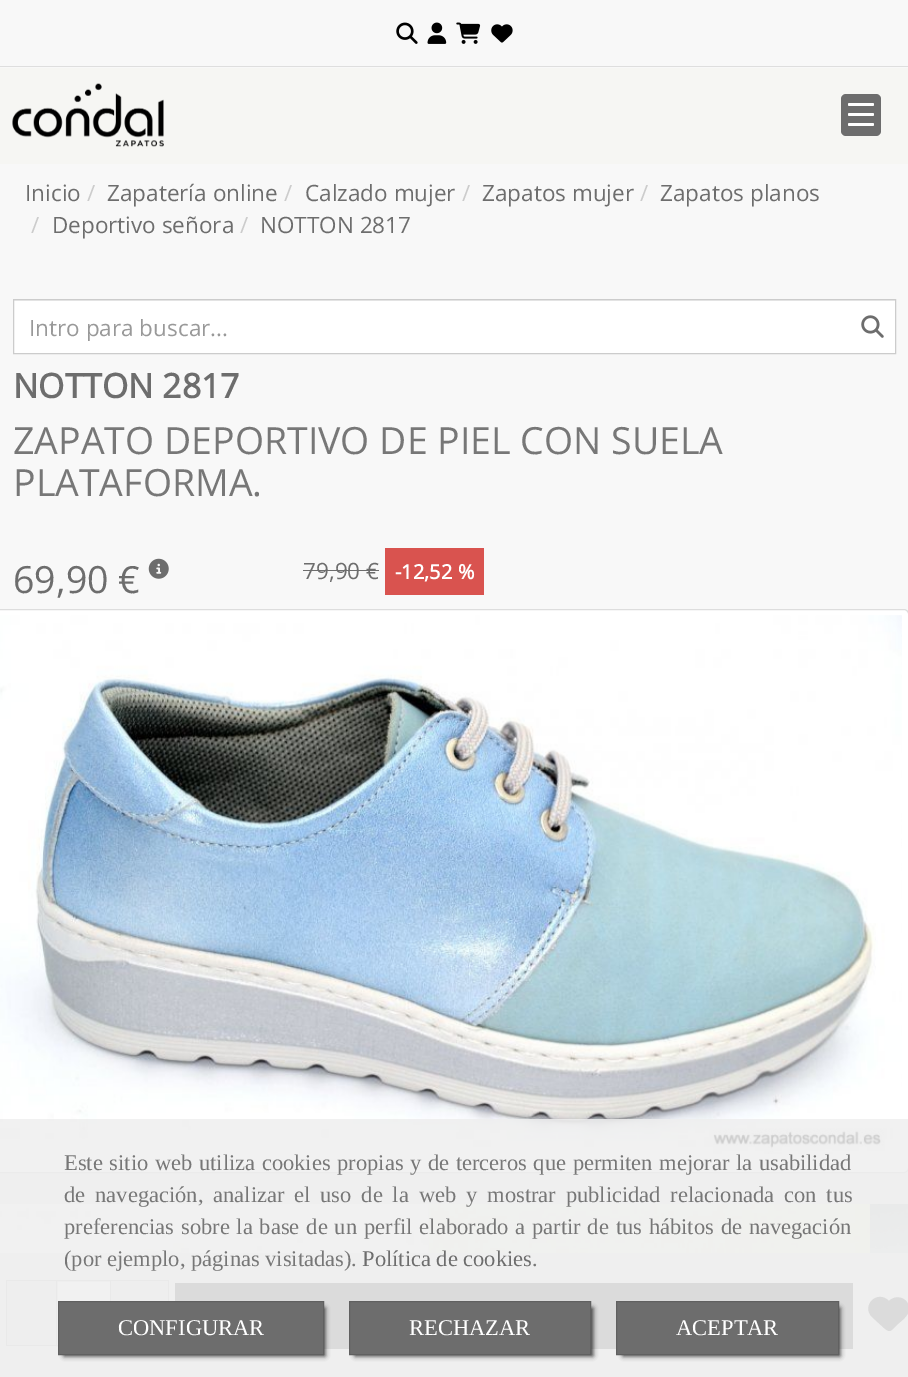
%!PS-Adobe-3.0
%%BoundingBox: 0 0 908 1377
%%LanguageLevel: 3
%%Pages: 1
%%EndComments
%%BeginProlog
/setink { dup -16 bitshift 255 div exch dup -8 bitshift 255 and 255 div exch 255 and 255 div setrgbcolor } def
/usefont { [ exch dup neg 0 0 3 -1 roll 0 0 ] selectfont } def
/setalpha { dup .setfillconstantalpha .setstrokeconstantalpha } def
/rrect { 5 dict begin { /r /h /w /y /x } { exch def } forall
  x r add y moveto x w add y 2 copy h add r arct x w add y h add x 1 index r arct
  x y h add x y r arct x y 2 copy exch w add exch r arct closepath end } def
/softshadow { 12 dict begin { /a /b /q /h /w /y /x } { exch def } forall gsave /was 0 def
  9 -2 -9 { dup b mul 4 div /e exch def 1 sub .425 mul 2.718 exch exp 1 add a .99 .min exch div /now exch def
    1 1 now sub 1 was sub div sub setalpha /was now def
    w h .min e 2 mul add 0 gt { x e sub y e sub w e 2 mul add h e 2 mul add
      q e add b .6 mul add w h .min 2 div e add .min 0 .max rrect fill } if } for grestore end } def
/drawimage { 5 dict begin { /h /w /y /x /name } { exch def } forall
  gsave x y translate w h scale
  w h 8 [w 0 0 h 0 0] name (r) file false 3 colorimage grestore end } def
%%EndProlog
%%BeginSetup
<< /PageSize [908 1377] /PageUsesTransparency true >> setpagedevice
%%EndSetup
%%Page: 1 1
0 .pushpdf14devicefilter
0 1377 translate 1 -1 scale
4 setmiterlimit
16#F8F8F8 setink
0 0 908 1377 rectfill
16#DEDEDE setink
0 66 908 1 rectfill
(img1.raw) 396 22 22 22 drawimage
(img2.raw) 427 22 20 22 drawimage
(img3.raw) 456 22 25 22 drawimage
(img4.raw) 491 24 22 19 drawimage
16#F6F6F3 setink
0 68 908 96 rectfill
(img5.raw) 12 83 152 64 drawimage
16#6D6D6D setink
841 94 40 42 5 rrect fill
16#FFFFFF setink
848 113 26 3 1.5 rrect fill
848 103 26 3 1.5 rrect fill
848 123 26 3 1.5 rrect fill
/OpenSans-Regular 22.5 usefont
16#6D6D6D setink
25 201 moveto (Inicio) show
16#CCCCCC setink
87 201 moveto (/) show
16#6D6D6D setink
107 201 moveto (Zapatería online) show
16#CCCCCC setink
284 201 moveto (/) show
16#6D6D6D setink
305 201 moveto (Calzado mujer) show
16#CCCCCC setink
462 201 moveto (/) show
16#6D6D6D setink
482 201 moveto (Zapatos mujer) show
16#CCCCCC setink
640 201 moveto (/) show
16#6D6D6D setink
660 201 moveto (Zapatos planos) show
16#CCCCCC setink
31 233 moveto (/) show
16#6D6D6D setink
52 233 moveto (Deportivo señora) show
16#CCCCCC setink
240 233 moveto (/) show
16#6D6D6D setink
260 233 moveto (NOTTON 2817) show
16#FFFFFF setink
14 301 881 52 rectfill
16#ECECEC setink
14 300 881 1 rectfill
16#CCCCCC setink
13.5 299.5 882 54 rectstroke
gsave
29 311 824 30 rectclip
16#999999 setink
29 336 moveto (Intro para buscar...) show
grestore
(img6.raw) 861 315 23 23 drawimage
/OpenSans-Bold 33.75 usefont
16#6D6D6D setink
13 398 moveto (NOTTON 2817) show
/OpenSans-Regular 37.5 usefont
16#777777 setink
13 454 moveto (ZAPATO DEPORTIVO DE PIEL CON SUELA) show
13 496 moveto (PLATAFORMA.) show
16#6D6D6D setink
13 593 moveto (69,90 €) show
(img7.raw) 148 558 21 21 drawimage
/OpenSans-Regular 22.5 usefont
303 579 moveto (79,90 €) show
303 570 76 1 rectfill
16#D9534F setink
385 548 99 47 rectfill
/OpenSans-Bold 20 usefont
16#FFFFFF setink
395 579 moveto (-12,52 %) show
-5.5 609.5 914 563 4.5 rrect gsave fill grestore
16#DDDDDD setink
stroke
(img8.raw) 0 615 902 539 drawimage
(img9.raw) 0 1204 429 49 drawimage
(img10.raw) 428 1204 442 49 drawimage
(img11.raw) 870 1204 38 49 drawimage
[
    [0 1253 908 124 16#F5F5F5]
    [7 1281 49 64 16#EEEEEE]
    [6 1280 50 1 16#CCCCCC]
    [6 1345 50 1 16#CCCCCC]
    [6 1280 1 66 16#CCCCCC]
] { aload pop setink rectfill } forall
16#FFFFFF setink
56.5 1280.5 moveto 110.5 1280.5 lineto 110.5 1345.5 lineto 56.5 1345.5 lineto closepath gsave fill grestore
16#CCCCCC setink
stroke
[
    [111 1281 57 20 16#EEEEEE]
    [111 1280 58 1 16#CCCCCC]
    [168 1280 1 21 16#CCCCCC]
    [175 1283 678 66 16#6D6D6D]
] { aload pop setink rectfill } forall
872 1317 moveto 887 1330 lineto 872 1317 lineto 884 1328 lineto 891 1334 891 1330 898 1324 curveto 901 1321 906 1318 908 1313 curveto 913 1301 898 1292 889 1301 curveto 877 1289 861 1306 872 1317 curveto closepath fill
0.85 setalpha
16#EEEEEE setink
0 1119 908 258 rectfill
/LiberationSerif-Regular 22.5 usefont
1 setalpha
16#777777 setink
64 1170 moveto 1 0 32 (Este sitio web utiliza cookies propias y de terceros que permiten mejorar la usabilidad) widthshow
64 1202 moveto 4.25 0 32 (de navegación, analizar el uso de la web y mostrar publicidad relacionada con tus) widthshow
64 1234 moveto 1.25 0 32 (preferencias sobre la base de un perfil elaborado a partir de tus hábitos de navegación) widthshow
64 1266 moveto (\(por ejemplo, páginas visitadas\).) show
16#6D6D6D setink
362 1266 moveto (Política de cookies) show
16#777777 setink
532 1266 moveto (.) show
16#000000 setink
64 1308 261 48 0 2.5 0.75 softshadow
16#6D6D6D setink
58.5 1301.5 moveto 323.5 1301.5 lineto 323.5 1354.5 lineto 58.5 1354.5 lineto closepath gsave fill grestore
16#606060 setink
stroke
16#FFFFFF setink
118 1335 moveto (CONFIGURAR) show
16#000000 setink
355 1308 238 48 0 2.5 0.75 softshadow
16#6D6D6D setink
349.5 1301.5 moveto 590.5 1301.5 lineto 590.5 1354.5 lineto 349.5 1354.5 lineto closepath gsave fill grestore
16#606060 setink
stroke
16#FFFFFF setink
409 1335 moveto (RECHAZAR) show
16#000000 setink
623 1308 217 48 0 2.5 0.75 softshadow
16#6D6D6D setink
616.5 1301.5 moveto 838.5 1301.5 lineto 838.5 1354.5 lineto 616.5 1354.5 lineto closepath gsave fill grestore
16#606060 setink
stroke
16#FFFFFF setink
676 1335 moveto (ACEPTAR) show
.poppdf14devicefilter showpage
%%EOF
